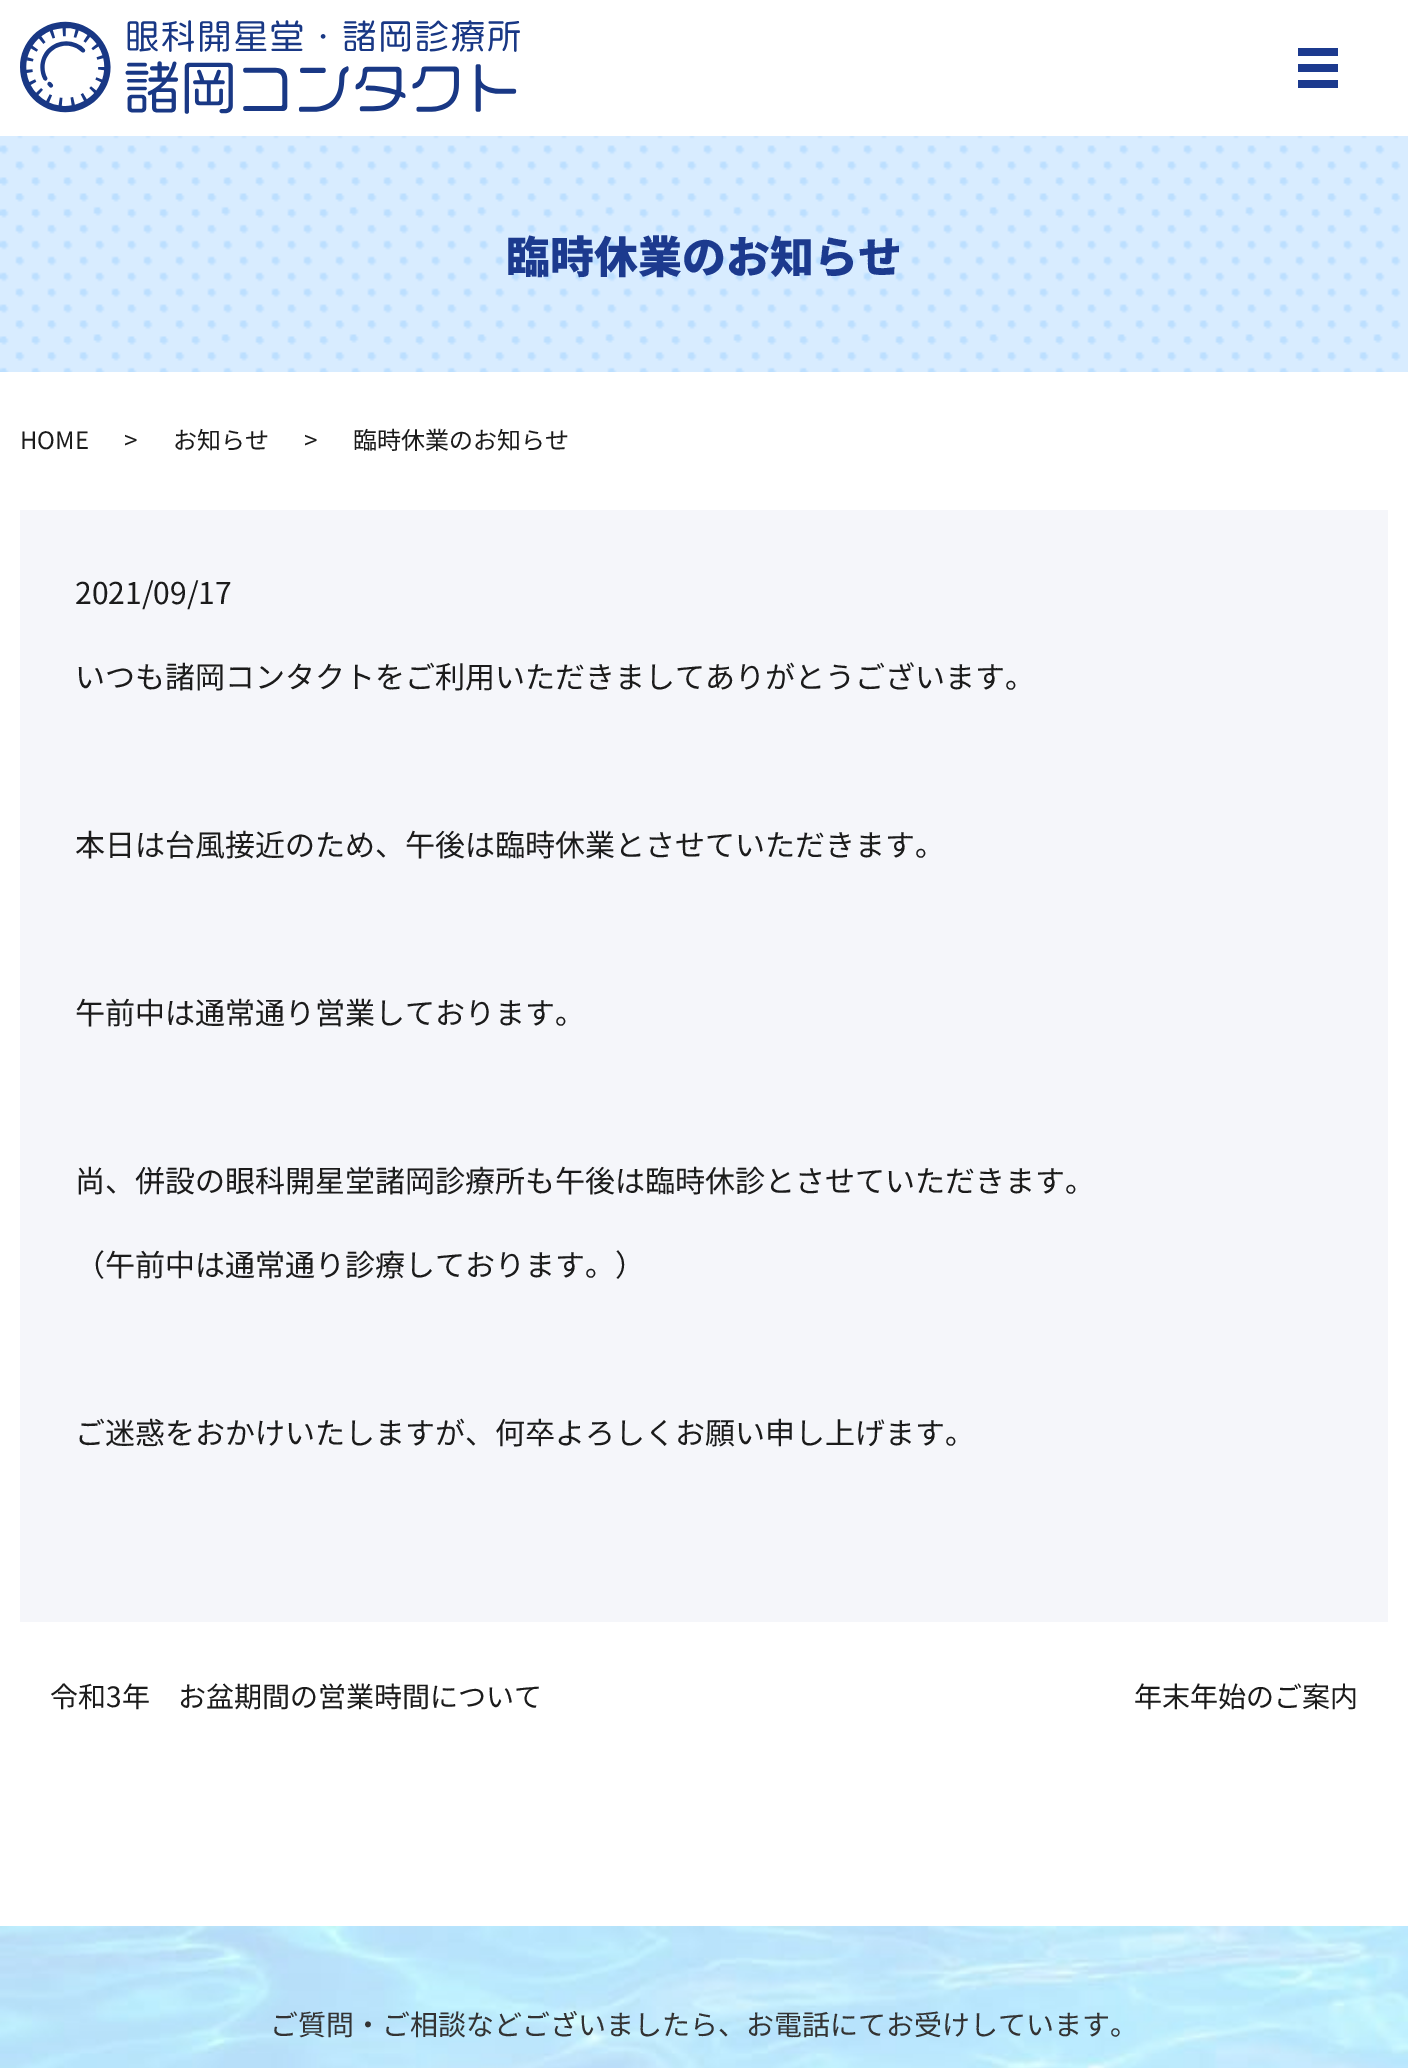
%!PS-Adobe-3.0
%%BoundingBox: 0 0 1408 2068
%%LanguageLevel: 3
%%Pages: 1
%%EndComments
%%BeginProlog
/setink { dup -16 bitshift 255 div exch dup -8 bitshift 255 and 255 div exch 255 and 255 div setrgbcolor } def
/usefont { [ exch dup neg 0 0 3 -1 roll 0 0 ] selectfont } def
/drawimage { 5 dict begin { /h /w /y /x /name } { exch def } forall
  gsave x y translate w h scale
  w h 8 [w 0 0 h 0 0] name (r) file false 3 colorimage grestore end } def
%%EndProlog
%%BeginSetup
<< /PageSize [1408 2068] >> setpagedevice
%%EndSetup
%%Page: 1 1
0 2068 translate 1 -1 scale
4 setmiterlimit
16#FFFFFF setink
0 0 1408 2068 rectfill
(img1.raw) 20 20 500 94 drawimage
[
    [1298 48 40 8 16#1C3A8E]
    [1298 64 40 8 16#1C3A8E]
    [1298 80 40 8 16#1C3A8E]
] { aload pop setink rectfill } forall
(img2.raw) 0 136 1408 236 drawimage
/NotoSansJP-Black 44 usefont
506 273 moveto (臨時休業のお知らせ) show
/NotoSansJP-Regular 24 usefont
16#1B1B1B setink
[
    [(HOME) 20 449]
    [(>) 124 449]
    [(お知らせ) 173 449]
    [(>) 304 449]
    [(臨時休業のお知らせ) 353 449]
] { aload pop moveto show } forall
16#F5F6FA setink
20 510 1368 1112 rectfill
/NotoSansJP-Regular 30 usefont
16#1B1B1B setink
[
    [(2021/09/17) 75 604]
    [(いつも諸岡コンタクトをご利用いただきましてありがとうございます。) 75 688]
    [(本日は台風接近のため、午後は臨時休業とさせていただきます。) 75 856]
    [(午前中は通常通り営業しております。) 75 1024]
    [(尚、併設の眼科開星堂諸岡診療所も午後は臨時休診とさせていただきます。) 75 1192]
    [(（午前中は通常通り診療しております。）) 75 1276]
    [(ご迷惑をおかけいたしますが、何卒よろしくお願い申し上げます。) 75 1444]
] { aload pop moveto show } forall
/NotoSansJP-Regular 28 usefont
50 1707 moveto (令和3年　お盆期間の営業時間について) show
1134 1707 moveto (年末年始のご案内) show
(img3.raw) 0 1926 1408 142 drawimage
16#333333 setink
270 2035 moveto (ご質問・ご相談などございましたら、お電話にてお受けしています。) show
showpage
%%EOF
